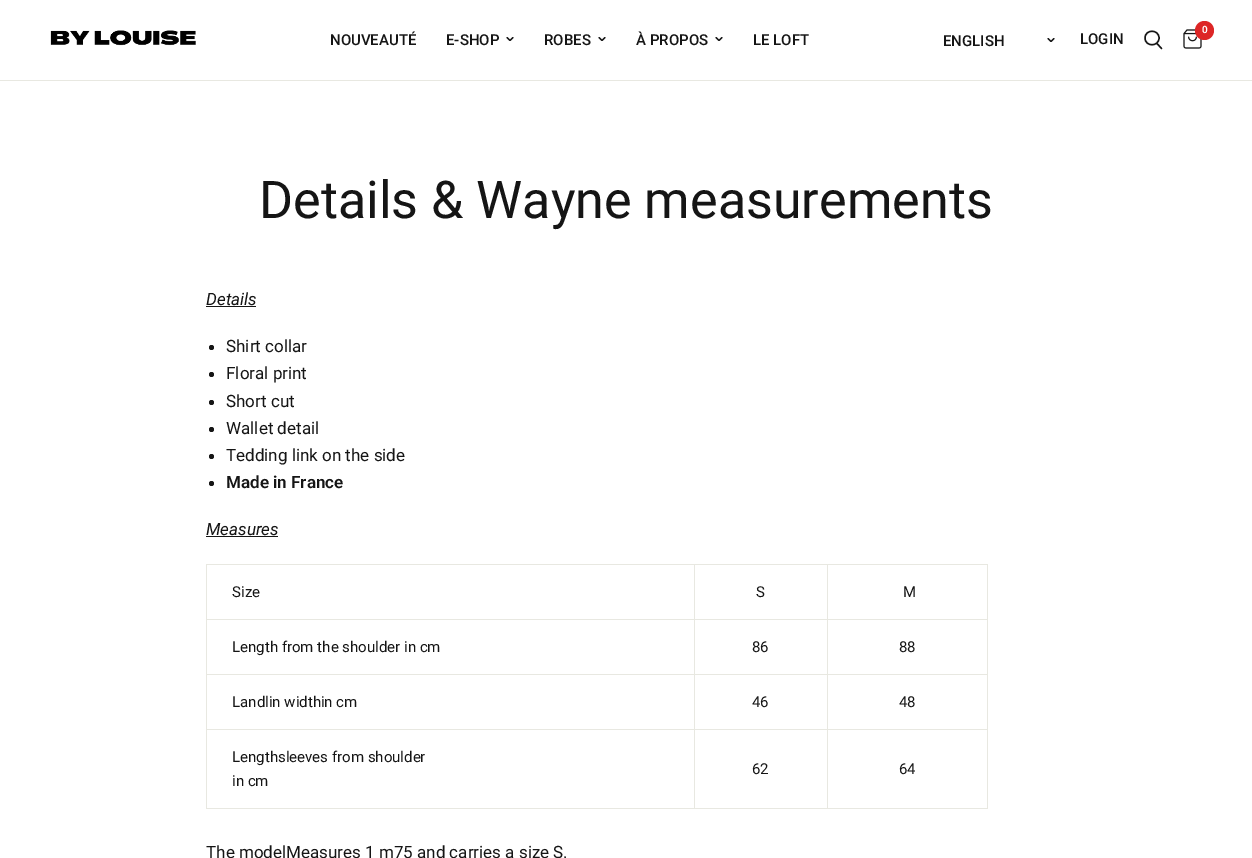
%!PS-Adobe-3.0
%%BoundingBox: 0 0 1252 858
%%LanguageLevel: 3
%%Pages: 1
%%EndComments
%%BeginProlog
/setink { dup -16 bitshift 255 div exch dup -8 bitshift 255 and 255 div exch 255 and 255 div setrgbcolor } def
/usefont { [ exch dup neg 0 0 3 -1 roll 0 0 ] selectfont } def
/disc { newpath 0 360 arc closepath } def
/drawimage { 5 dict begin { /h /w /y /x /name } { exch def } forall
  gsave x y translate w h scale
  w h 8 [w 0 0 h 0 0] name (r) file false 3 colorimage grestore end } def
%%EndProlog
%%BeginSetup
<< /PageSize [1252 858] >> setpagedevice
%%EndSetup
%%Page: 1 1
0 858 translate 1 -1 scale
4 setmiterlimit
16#FFFFFF setink
0 0 1252 858 rectfill
16#E8E8E1 setink
0 80 1252 1 rectfill
(img1.raw) 50 30 146 16 drawimage
/Roboto-Medium 15 usefont
16#151515 setink
330 45 moveto (NOUVEAUTÉ) show
446 45 moveto (E-SHOP) show
1.1 setlinewidth
1 setlinecap
1 setlinejoin
513 37.5 moveto 510 40.5 lineto 507 37.5 lineto stroke
544 45 moveto (ROBES) show
605 37.5 moveto 602 40.5 lineto 599 37.5 lineto stroke
636 45 moveto (À PROPOS) show
722 37.5 moveto 719 40.5 lineto 716 37.5 lineto stroke
753 45 moveto (LE LOFT) show
943 46 moveto (ENGLISH) show
1054 38.5 moveto 1051 41.5 lineto 1048 38.5 lineto stroke
1080 44 moveto (LOGIN) show
1.4 setlinewidth
1157 43.5 moveto 1161.5 48.5 lineto 1159 38 moveto 1159 47 1145 47 1145 38 curveto 1145 29 1159 29 1159 38 curveto closepath stroke
(img2.raw) 1183 29 19 20 drawimage
16#DD2626 setink
1204.5 30.5 9.5 disc fill
/Roboto-SemiBold 10 usefont
16#FFFFFF setink
1202 33 moveto (0) show
/Roboto-Regular 52 usefont
16#151515 setink
259 218 moveto (Details & Wayne measurements) show
/Roboto-Italic 17 usefont
206 305 moveto (Details) show
206 306 50 1 rectfill
211.5 347.5 2.5 disc fill
/Roboto-Regular 17 usefont
226 352 moveto (Shirt collar) show
211.5 374.5 2.5 disc fill
226 379 moveto (Floral print) show
211.5 402.5 2.5 disc fill
226 407 moveto (Short cut) show
211.5 429.5 2.5 disc fill
226 434 moveto (Wallet detail) show
211.5 456.5 2.5 disc fill
226 461 moveto (Tedding link on the side) show
211.5 483.5 2.5 disc fill
/Roboto-SemiBold 17 usefont
226 488 moveto (Made in France) show
/Roboto-Italic 17 usefont
206 535 moveto (Measures) show
[
    [206 536 72 1 16#151515]
    [206 564 782 1 16#E8E8E1]
    [987 564 1 245 16#E8E8E1]
    [206 808 782 1 16#E8E8E1]
    [206 564 1 245 16#E8E8E1]
] { aload pop setink rectfill } forall
/Roboto-Regular 15 usefont
16#151515 setink
232 597 moveto (Size) show
[
    [827 619 161 1 16#E8E8E1]
    [827 674 161 1 16#E8E8E1]
    [827 729 161 1 16#E8E8E1]
    [827 729 1 80 16#E8E8E1]
    [694 729 134 1 16#E8E8E1]
    [827 674 1 56 16#E8E8E1]
    [694 674 134 1 16#E8E8E1]
    [827 619 1 56 16#E8E8E1]
    [694 619 134 1 16#E8E8E1]
    [694 729 1 80 16#E8E8E1]
    [206 729 489 1 16#E8E8E1]
    [694 674 1 56 16#E8E8E1]
    [206 674 489 1 16#E8E8E1]
    [694 619 1 56 16#E8E8E1]
    [206 619 489 1 16#E8E8E1]
    [694 564 1 56 16#E8E8E1]
] { aload pop setink rectfill } forall
16#151515 setink
756 597 moveto (S) show
16#E8E8E1 setink
827 564 1 56 rectfill
16#151515 setink
[
    [(M) 903 597]
    [(Length from the shoulder in cm) 232 652]
    [(86) 752 652]
    [(88) 899 652]
    [(Landlin widthin cm) 232 707]
    [(46) 752 707]
    [(48) 899 707]
    [(Lengthsleeves from shoulder) 232 762]
    [(in cm) 232 786]
    [(62) 752 774]
    [(64) 899 774]
] { aload pop moveto show } forall
/Roboto-Regular 17 usefont
206 858 moveto (The modelMeasures 1 m75 and carries a size S.) show
showpage
%%EOF
